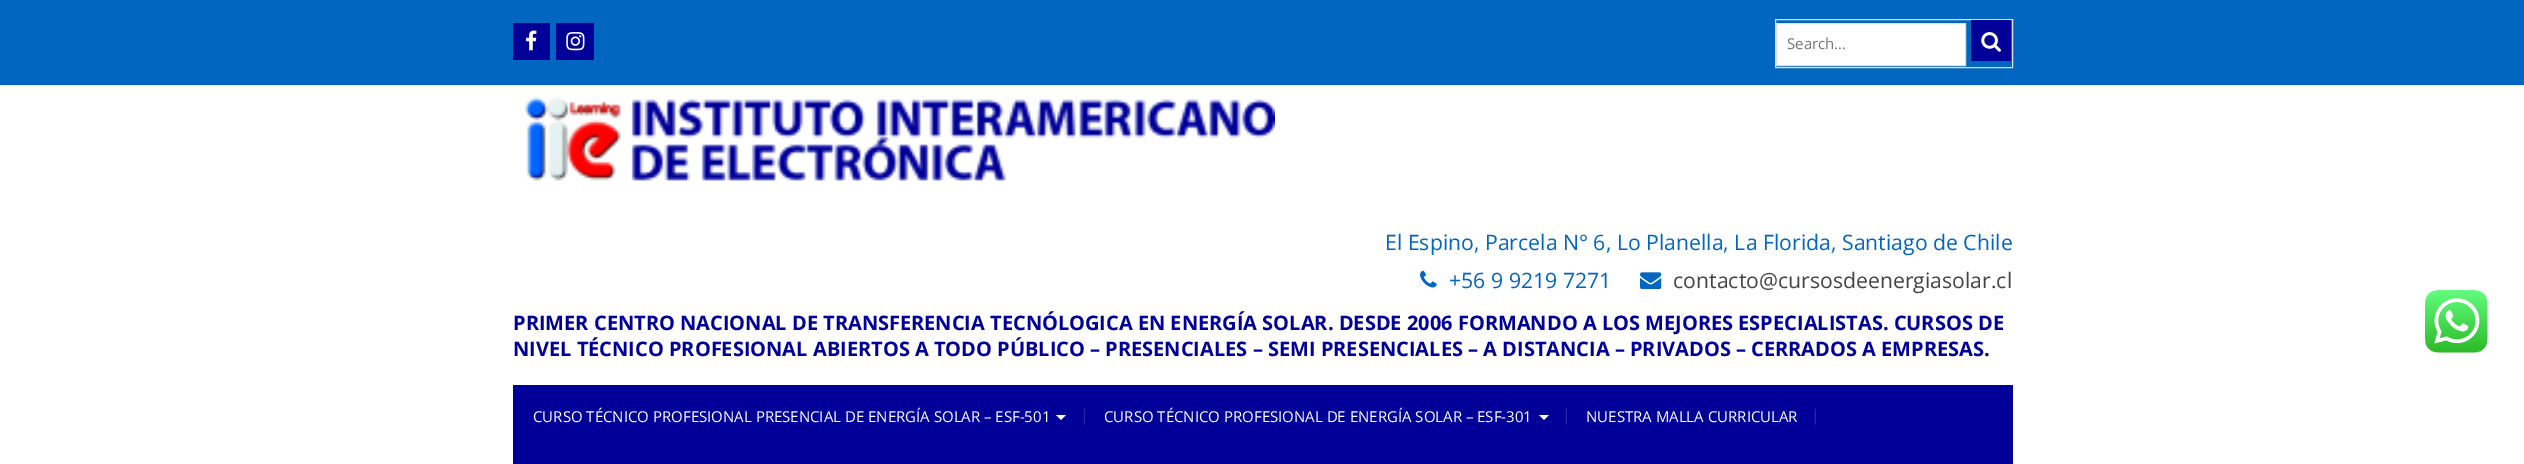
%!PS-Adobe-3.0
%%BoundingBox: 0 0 2524 464
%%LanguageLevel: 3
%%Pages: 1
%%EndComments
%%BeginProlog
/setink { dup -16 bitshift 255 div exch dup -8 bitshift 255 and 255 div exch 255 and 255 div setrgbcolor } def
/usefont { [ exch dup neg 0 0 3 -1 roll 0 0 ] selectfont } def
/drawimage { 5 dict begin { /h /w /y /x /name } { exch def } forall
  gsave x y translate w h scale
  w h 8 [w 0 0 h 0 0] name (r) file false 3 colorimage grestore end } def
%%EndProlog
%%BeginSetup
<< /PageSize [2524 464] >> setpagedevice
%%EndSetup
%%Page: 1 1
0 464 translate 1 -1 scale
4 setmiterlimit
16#0066BF setink
0 0 2524 464 rectfill
16#000099 setink
513 23 37 37 rectfill
(img1.raw) 526 30 11 21 drawimage
556 23 38 37 rectfill
(img2.raw) 566 32 19 19 drawimage
16#DDDDDD setink
1775.5 19.5 237 48 rectstroke
16#FFFFFF setink
1776.5 23.5 moveto 1965.5 23.5 lineto 1965.5 65.5 lineto 1776.5 65.5 lineto closepath gsave fill grestore
16#DDDDDD setink
stroke
/OpenSans-Regular 15 usefont
16#757575 setink
1787 49 moveto (Search...) show
16#000099 setink
1971 20 40 41 rectfill
(img3.raw) 1981 32 20 20 drawimage
16#FFFFFF setink
0 86 2524 378 rectfill
16#EEEEEE setink
0 85 2524 1 rectfill
(img4.raw) 525 97 750 84 drawimage
/OpenSans-Regular 21.25 usefont
16#0166BF setink
1385 250 moveto (El Espino, Parcela N° 6, Lo Planella, La Florida, Santiago de Chile) show
(img5.raw) 1420 270 17 18 drawimage
1449 288 moveto (+56 9 9219 7271) show
(img6.raw) 1640 272 22 17 drawimage
16#444444 setink
1673 288 moveto (contacto@cursosdeenergiasolar.cl) show
/OpenSans-Bold 20 usefont
16#000099 setink
513 330 moveto (PRIMER CENTRO NACIONAL DE TRANSFERENCIA TECNÓLOGICA EN ENERGÍA SOLAR. DESDE 2006 FORMANDO A LOS MEJORES ESPECIALISTAS. CURSOS DE) show
513 356 moveto (NIVEL TÉCNICO PROFESIONAL ABIERTOS A TODO PÚBLICO – PRESENCIALES – SEMI PRESENCIALES – A DISTANCIA – PRIVADOS – CERRADOS A EMPRESAS.) show
513 385 1500 79 rectfill
/OpenSans-Regular 15 usefont
16#FFFFFF setink
533 422 moveto (CURSO TÉCNICO PROFESIONAL PRESENCIAL DE ENERGÍA SOLAR – ESF-501) show
1056 415 moveto 1066 415 lineto 1061 420 lineto closepath fill
/OpenSans-Regular 16 usefont
16#2626A8 setink
1080 421 moveto (|) show
/OpenSans-Regular 15 usefont
16#FFFFFF setink
1104 422 moveto (CURSO TÉCNICO PROFESIONAL DE ENERGÍA SOLAR – ESF-301) show
1539 415 moveto 1549 415 lineto 1544 420 lineto closepath fill
/OpenSans-Regular 16 usefont
16#2626A8 setink
1562 421 moveto (|) show
/OpenSans-Regular 15 usefont
16#FFFFFF setink
1586 422 moveto (NUESTRA MALLA CURRICULAR) show
/OpenSans-Regular 16 usefont
16#2626A8 setink
1811 421 moveto (|) show
(img7.raw) 2425 290 63 63 drawimage
showpage
%%EOF
